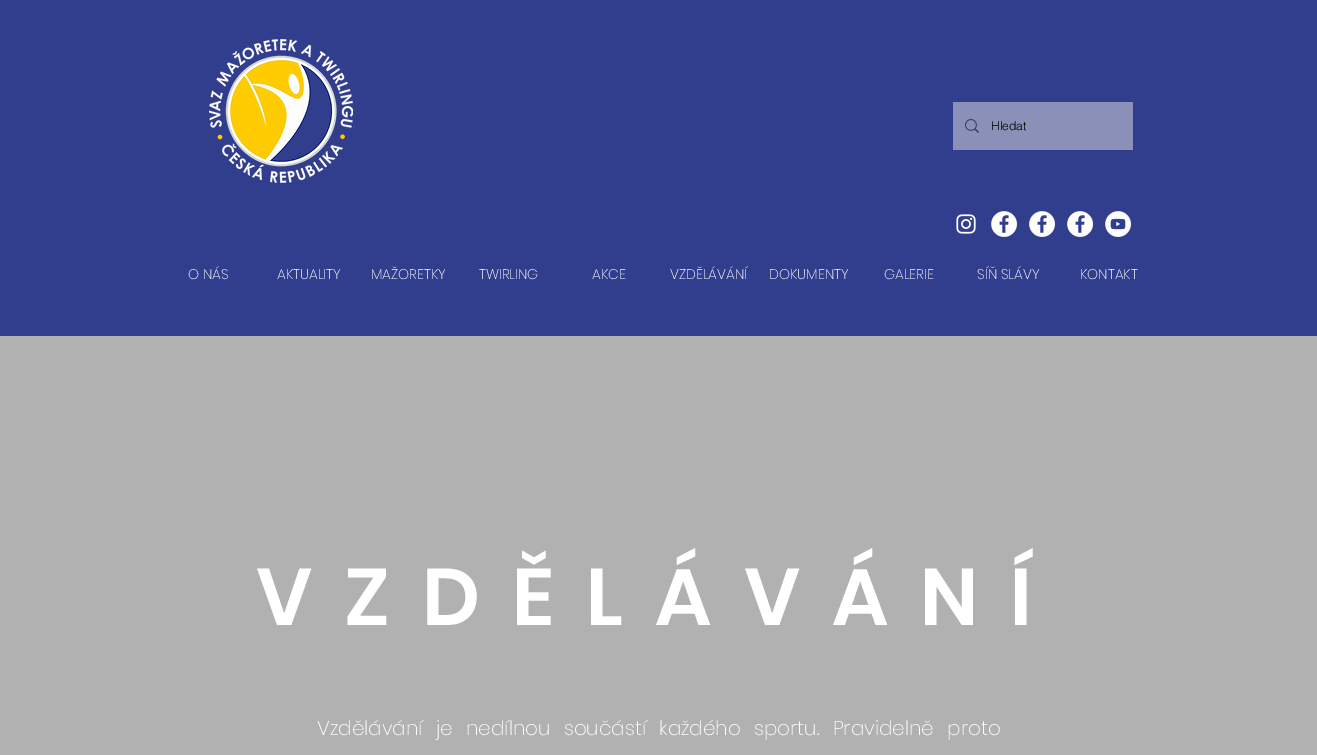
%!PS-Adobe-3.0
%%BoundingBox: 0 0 1317 755
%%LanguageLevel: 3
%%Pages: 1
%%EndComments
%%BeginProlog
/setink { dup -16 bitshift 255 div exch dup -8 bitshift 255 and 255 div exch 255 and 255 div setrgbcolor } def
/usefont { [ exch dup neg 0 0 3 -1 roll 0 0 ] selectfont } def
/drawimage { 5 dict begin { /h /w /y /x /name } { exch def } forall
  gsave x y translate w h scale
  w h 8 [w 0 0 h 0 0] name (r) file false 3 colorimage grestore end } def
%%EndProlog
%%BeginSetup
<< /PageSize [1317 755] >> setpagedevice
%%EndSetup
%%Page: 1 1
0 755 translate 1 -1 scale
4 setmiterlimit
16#B1B1B1 setink
0 0 1317 755 rectfill
16#313D8D setink
0 0 1317 336 rectfill
(img1.raw) 209 39 144 144 drawimage
16#8A90B8 setink
953 102 180 48 rectfill
(img2.raw) 965 119 14 14 drawimage
/helvetica-Light 12 usefont
16#000000 setink
991 130 moveto (Hledat) show
(img3.raw) 956 214 20 20 drawimage
(img4.raw) 991 211 26 26 drawimage
(img4.raw) 1029 211 26 26 drawimage
(img4.raw) 1067 211 26 26 drawimage
(img5.raw) 1105 211 26 26 drawimage
/Poppins-ExtraLight 14 usefont
16#FFFFFF setink
[
    [(O NÁS) 188 279]
    [(AKTUALITY) 277 279]
    [(MAŽORETKY) 371 279]
    [(TWIRLING) 479 279]
    [(AKCE) 592 279]
    [(VZDĚLÁVÁNÍ) 670 279]
    [(DOKUMENTY) 769 279]
    [(GALERIE) 884 279]
    [(SÍŇ SLÁVY) 977 279]
    [(KONTAKT) 1080 279]
] { aload pop moveto show } forall
/Poppins-SemiBold 80 usefont
256 625 moveto 32 0 (VZDĚLÁVÁNÍ) ashow
/Poppins-ExtraLight 20 usefont
317 735 moveto 7.75 0 32 (Vzdělávání je nedílnou součástí každého sportu. Pravidelně proto) widthshow
showpage
%%EOF
